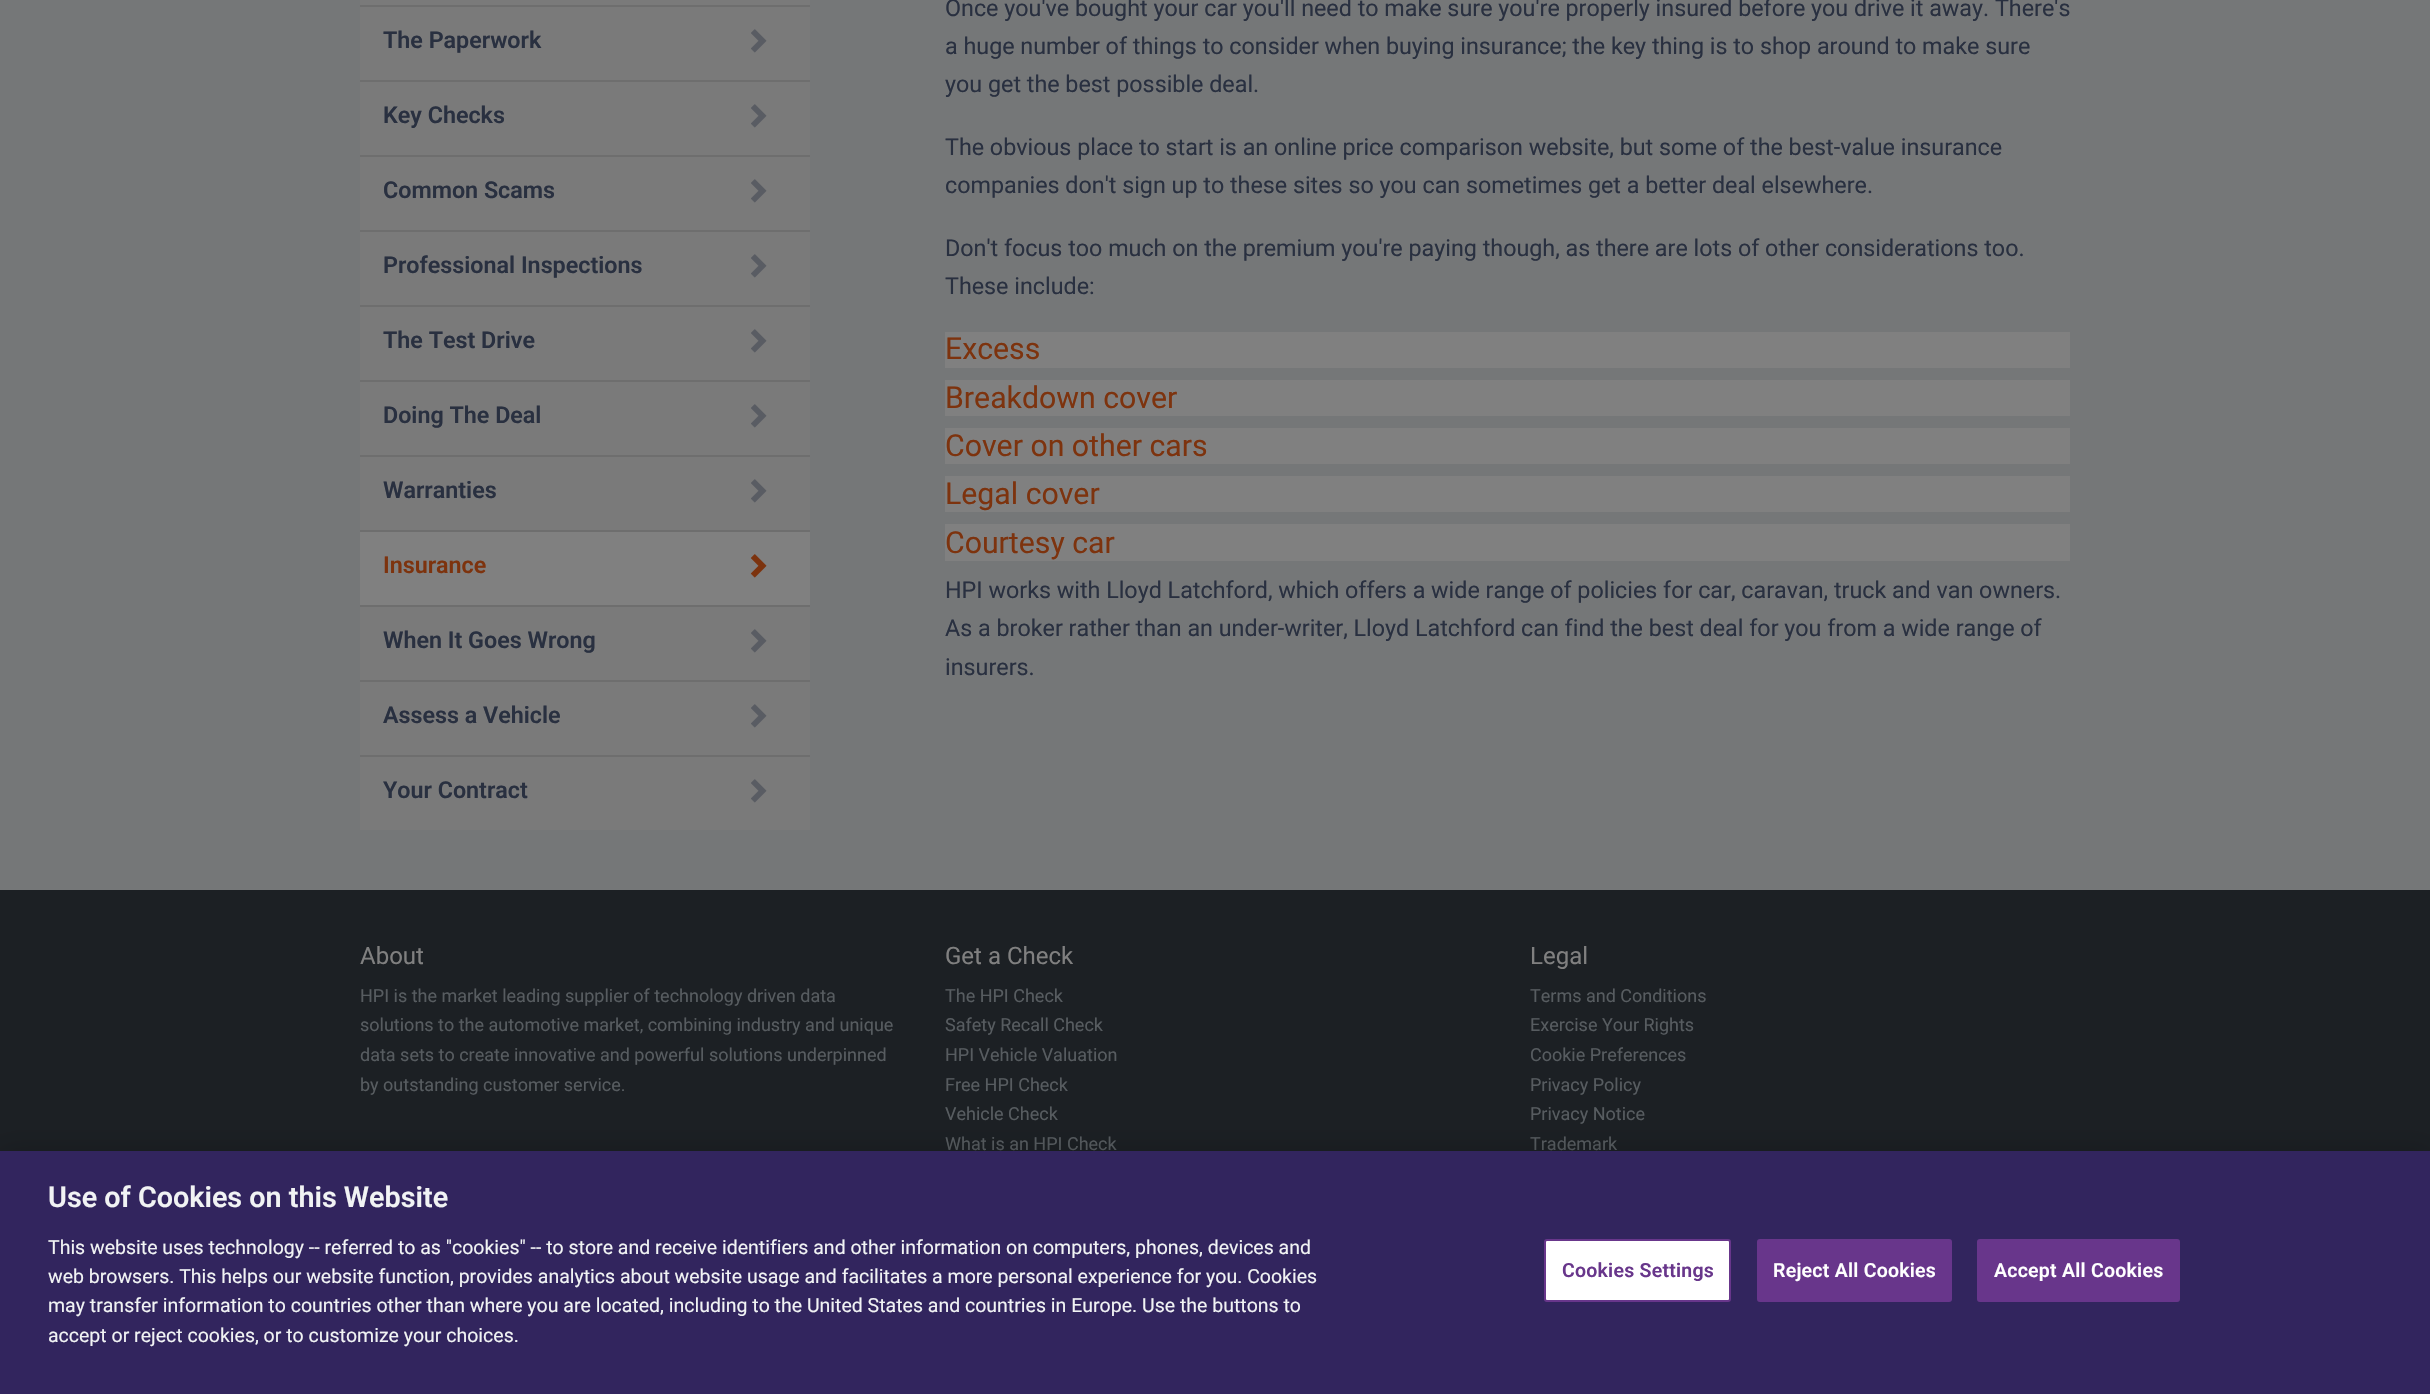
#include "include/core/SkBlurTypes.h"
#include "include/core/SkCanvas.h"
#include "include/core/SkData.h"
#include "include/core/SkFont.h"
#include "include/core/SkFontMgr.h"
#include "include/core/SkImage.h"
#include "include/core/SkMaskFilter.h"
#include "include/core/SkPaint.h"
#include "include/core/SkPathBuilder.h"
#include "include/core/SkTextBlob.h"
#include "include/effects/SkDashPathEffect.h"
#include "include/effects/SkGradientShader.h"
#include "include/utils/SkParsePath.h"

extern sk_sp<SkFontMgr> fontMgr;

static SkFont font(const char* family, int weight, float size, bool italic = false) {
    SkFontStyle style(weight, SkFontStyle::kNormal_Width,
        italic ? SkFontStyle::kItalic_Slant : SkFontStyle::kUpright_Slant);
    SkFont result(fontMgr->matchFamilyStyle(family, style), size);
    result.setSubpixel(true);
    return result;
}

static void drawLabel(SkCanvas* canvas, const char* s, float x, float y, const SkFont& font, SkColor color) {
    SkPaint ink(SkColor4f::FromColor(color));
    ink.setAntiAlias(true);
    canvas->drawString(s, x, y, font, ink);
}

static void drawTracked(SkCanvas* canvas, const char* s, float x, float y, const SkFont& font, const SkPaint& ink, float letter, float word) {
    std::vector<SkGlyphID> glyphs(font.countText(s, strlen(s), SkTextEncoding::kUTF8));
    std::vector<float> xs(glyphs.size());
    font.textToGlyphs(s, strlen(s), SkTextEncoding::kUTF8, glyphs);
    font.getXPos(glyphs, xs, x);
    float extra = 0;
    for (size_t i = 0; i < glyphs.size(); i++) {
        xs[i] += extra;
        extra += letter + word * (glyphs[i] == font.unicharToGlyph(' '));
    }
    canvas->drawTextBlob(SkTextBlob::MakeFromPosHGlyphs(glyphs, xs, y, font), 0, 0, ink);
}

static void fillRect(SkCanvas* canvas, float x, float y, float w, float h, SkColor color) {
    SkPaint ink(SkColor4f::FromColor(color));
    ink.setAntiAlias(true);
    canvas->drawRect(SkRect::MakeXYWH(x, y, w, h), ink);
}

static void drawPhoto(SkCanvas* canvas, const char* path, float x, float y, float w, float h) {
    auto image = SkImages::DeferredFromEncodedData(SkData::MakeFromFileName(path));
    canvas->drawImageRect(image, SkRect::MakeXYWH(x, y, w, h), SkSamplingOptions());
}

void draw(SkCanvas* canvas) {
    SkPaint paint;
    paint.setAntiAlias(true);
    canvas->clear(0xFF757778);
    fillRect(canvas, 360, 0, 450, 5, 0xFF7A7A7A);
    fillRect(canvas, 360, 7, 450, 73, 0xFF7A7A7A);
    fillRect(canvas, 360, 5, 450, 2, 0xFF6E6E6E);
    SkFont font1 = font("Roboto", 600, 23.3f);
    drawLabel(canvas, "The Paperwork", 383, 48, font1, 0xFF293040);
    drawPhoto(canvas, "assets/img1.png", 751, 29, 16, 24);
    fillRect(canvas, 360, 82, 450, 73, 0xFF7A7A7A);
    fillRect(canvas, 360, 80, 450, 2, 0xFF6E6E6E);
    drawLabel(canvas, "Key Checks", 383, 123, font1, 0xFF293040);
    drawPhoto(canvas, "assets/img1.png", 751, 104, 16, 24);
    fillRect(canvas, 360, 157, 450, 73, 0xFF7A7A7A);
    fillRect(canvas, 360, 155, 450, 2, 0xFF6E6E6E);
    drawLabel(canvas, "Common Scams", 383, 198, font1, 0xFF293040);
    drawPhoto(canvas, "assets/img1.png", 751, 179, 16, 24);
    fillRect(canvas, 360, 232, 450, 73, 0xFF7A7A7A);
    fillRect(canvas, 360, 230, 450, 2, 0xFF6E6E6E);
    drawLabel(canvas, "Professional Inspections", 383, 273, font1, 0xFF293040);
    drawPhoto(canvas, "assets/img1.png", 751, 254, 16, 24);
    fillRect(canvas, 360, 307, 450, 73, 0xFF7A7A7A);
    fillRect(canvas, 360, 305, 450, 2, 0xFF6E6E6E);
    drawLabel(canvas, "The Test Drive", 383, 348, font1, 0xFF293040);
    drawPhoto(canvas, "assets/img1.png", 751, 329, 16, 24);
    fillRect(canvas, 360, 382, 450, 73, 0xFF7A7A7A);
    fillRect(canvas, 360, 380, 450, 2, 0xFF6E6E6E);
    drawLabel(canvas, "Doing The Deal", 383, 423, font1, 0xFF293040);
    drawPhoto(canvas, "assets/img1.png", 751, 404, 16, 24);
    fillRect(canvas, 360, 457, 450, 73, 0xFF7A7A7A);
    fillRect(canvas, 360, 455, 450, 2, 0xFF6E6E6E);
    drawLabel(canvas, "Warranties", 383, 498, font1, 0xFF293040);
    drawPhoto(canvas, "assets/img1.png", 751, 479, 16, 24);
    fillRect(canvas, 360, 532, 450, 73, 0xFF808080);
    fillRect(canvas, 360, 530, 450, 2, 0xFF6E6E6E);
    drawLabel(canvas, "Insurance", 383, 573, font1, 0xFF7D330E);
    drawPhoto(canvas, "assets/img2.png", 750, 554, 17, 24);
    fillRect(canvas, 360, 607, 450, 73, 0xFF7A7A7A);
    fillRect(canvas, 360, 605, 450, 2, 0xFF6E6E6E);
    drawLabel(canvas, "When It Goes Wrong", 383, 648, font1, 0xFF293040);
    drawPhoto(canvas, "assets/img1.png", 751, 629, 16, 24);
    fillRect(canvas, 360, 682, 450, 73, 0xFF7A7A7A);
    fillRect(canvas, 360, 680, 450, 2, 0xFF6E6E6E);
    drawLabel(canvas, "Assess a Vehicle", 383, 723, font1, 0xFF293040);
    drawPhoto(canvas, "assets/img1.png", 751, 704, 16, 24);
    fillRect(canvas, 360, 757, 450, 73, 0xFF7A7A7A);
    fillRect(canvas, 360, 755, 450, 2, 0xFF6E6E6E);
    drawLabel(canvas, "Your Contract", 383, 798, font1, 0xFF293040);
    drawPhoto(canvas, "assets/img1.png", 751, 779, 16, 24);
    SkFont font2 = font("Roboto", 400, 23.3f);
    drawLabel(canvas, "Once you've bought your car you'll need to make sure you're properly insured before you drive it away. There's", 945, 16, font2, 0xFF293040);
    drawLabel(canvas, "a huge number of things to consider when buying insurance; the key thing is to shop around to make sure", 945, 54, font2, 0xFF293040);
    drawLabel(canvas, "you get the best possible deal.", 945, 92, font2, 0xFF293040);
    drawLabel(canvas, "The obvious place to start is an online price comparison website, but some of the best-value insurance", 945, 155, font2, 0xFF293040);
    drawLabel(canvas, "companies don't sign up to these sites so you can sometimes get a better deal elsewhere.", 945, 193, font2, 0xFF293040);
    drawLabel(canvas, "Don't focus too much on the premium you're paying though, as there are lots of other considerations too.", 945, 256, font2, 0xFF293040);
    drawLabel(canvas, "These include:", 945, 294, font2, 0xFF293040);
    fillRect(canvas, 945, 332, 1125, 36, 0xFF808080);
    SkFont font3 = font("Roboto", 400, 30.25f);
    drawLabel(canvas, "Excess", 945, 359, font3, 0xFF7D330E);
    fillRect(canvas, 945, 380, 1125, 36, 0xFF808080);
    drawLabel(canvas, "Breakdown cover", 945, 408, font3, 0xFF7D330E);
    fillRect(canvas, 945, 428, 1125, 36, 0xFF808080);
    drawLabel(canvas, "Cover on other cars", 945, 456, font3, 0xFF7D330E);
    fillRect(canvas, 945, 476, 1125, 36, 0xFF808080);
    drawLabel(canvas, "Legal cover", 945, 504, font3, 0xFF7D330E);
    fillRect(canvas, 945, 524, 1125, 37, 0xFF808080);
    drawLabel(canvas, "Courtesy car", 945, 553, font3, 0xFF7D330E);
    drawLabel(canvas, "HPI works with Lloyd Latchford, which offers a wide range of policies for car, caravan, truck and van owners.", 945, 598, font2, 0xFF293040);
    drawLabel(canvas, "As a broker rather than an under-writer, Lloyd Latchford can find the best deal for you from a wide range of", 945, 636, font2, 0xFF293040);
    drawLabel(canvas, "insurers.", 945, 675, font2, 0xFF293040);
    fillRect(canvas, 0, 890, 2430, 261, 0xFF1C2024);
    SkFont font4 = font("Roboto", 400, 24);
    drawLabel(canvas, "About", 360, 964, font4, 0xFF808080);
    SkFont font5 = font("Roboto", 400, 18);
    drawLabel(canvas, "HPI is the market leading supplier of technology driven data", 360, 1002, font5, 0xFF575C60);
    drawLabel(canvas, "solutions to the automotive market, combining industry and unique", 360, 1031, font5, 0xFF575C60);
    drawLabel(canvas, "data sets to create innovative and powerful solutions underpinned", 360, 1061, font5, 0xFF575C60);
    drawLabel(canvas, "by outstanding customer service.", 360, 1091, font5, 0xFF575C60);
    drawLabel(canvas, "Get a Check", 945, 964, font4, 0xFF808080);
    drawLabel(canvas, "The HPI Check", 945, 1002, font5, 0xFF575C60);
    drawLabel(canvas, "Safety Recall Check", 945, 1031, font5, 0xFF575C60);
    drawLabel(canvas, "HPI Vehicle Valuation", 945, 1061, font5, 0xFF575C60);
    drawLabel(canvas, "Free HPI Check", 945, 1091, font5, 0xFF575C60);
    drawLabel(canvas, "Vehicle Check", 945, 1120, font5, 0xFF575C60);
    drawLabel(canvas, "What is an HPI Check", 945, 1150, font5, 0xFF575C60);
    drawLabel(canvas, "Legal", 1530, 964, font4, 0xFF808080);
    drawLabel(canvas, "Terms and Conditions", 1530, 1002, font5, 0xFF575C60);
    drawLabel(canvas, "Exercise Your Rights", 1530, 1031, font5, 0xFF575C60);
    drawLabel(canvas, "Cookie Preferences", 1530, 1061, font5, 0xFF575C60);
    drawLabel(canvas, "Privacy Policy", 1530, 1091, font5, 0xFF575C60);
    drawLabel(canvas, "Privacy Notice", 1530, 1120, font5, 0xFF575C60);
    drawLabel(canvas, "Trademark", 1530, 1150, font5, 0xFF575C60);
    paint.setColor(0x33000000);
    paint.setMaskFilter(SkMaskFilter::MakeBlur(kNormal_SkBlurStyle, 13.5f));
    canvas->drawRect(SkRect::MakeXYWH(0, 1151, 2430, 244), paint);
    paint.setMaskFilter(nullptr);
    fillRect(canvas, 0, 1151, 2430, 243, 0xFF32255E);
    SkFont font6 = font("Roboto", 600, 28.75f);
    drawLabel(canvas, "Use of Cookies on this Website", 48, 1207, font6, 0xFFF1F3F4);
    SkFont font7 = font("Roboto", 400, 19.5f);
    drawLabel(canvas, "This website uses technology -- referred to as \"cookies\" -- to store and receive identifiers and other information on computers, phones, devices and", 48, 1254, font7, 0xFFF1F3F4);
    drawLabel(canvas, "web browsers. This helps our website function, provides analytics about website usage and facilitates a more personal experience for you. Cookies", 48, 1283, font7, 0xFFF1F3F4);
    drawLabel(canvas, "may transfer information to countries other than where you are located, including to the United States and countries in Europe. Use the buttons to", 48, 1312, font7, 0xFFF1F3F4);
    drawLabel(canvas, "accept or reject cookies, or to customize your choices.", 48, 1342, font7, 0xFFF1F3F4);
    paint.setColor(0xFFFFFFFF);
    canvas->drawRoundRect(SkRect::MakeXYWH(1545, 1240, 185, 61), 2, 2, paint);
    paint.setStroke(true);
    paint.setStrokeWidth(2);
    paint.setColor(0xFF68368B);
    canvas->drawRoundRect(SkRect::MakeXYWH(1545, 1240, 185, 61), 2, 2, paint);
    SkFont font8 = font("Roboto", 600, 19.5f);
    paint.setStroke(false);
    drawTracked(canvas, "Cookies Settings", 1562, 1277, font8, paint, 0.25f, 0);
    canvas->drawRoundRect(SkRect::MakeXYWH(1758, 1240, 193, 61), 2, 2, paint);
    paint.setStroke(true);
    canvas->drawRoundRect(SkRect::MakeXYWH(1758, 1240, 193, 61), 2, 2, paint);
    paint.setStroke(false);
    paint.setColor(0xFFFFFFFF);
    drawTracked(canvas, "Reject All Cookies", 1773, 1277, font8, paint, 0.25f, 0);
    paint.setColor(0xFF68368B);
    canvas->drawRoundRect(SkRect::MakeXYWH(1978, 1240, 201, 61), 2, 2, paint);
    paint.setStroke(true);
    canvas->drawRoundRect(SkRect::MakeXYWH(1978, 1240, 201, 61), 2, 2, paint);
    paint.setStroke(false);
    paint.setColor(0xFFFFFFFF);
    drawTracked(canvas, "Accept All Cookies", 1994, 1277, font8, paint, 0.25f, 0);
}
